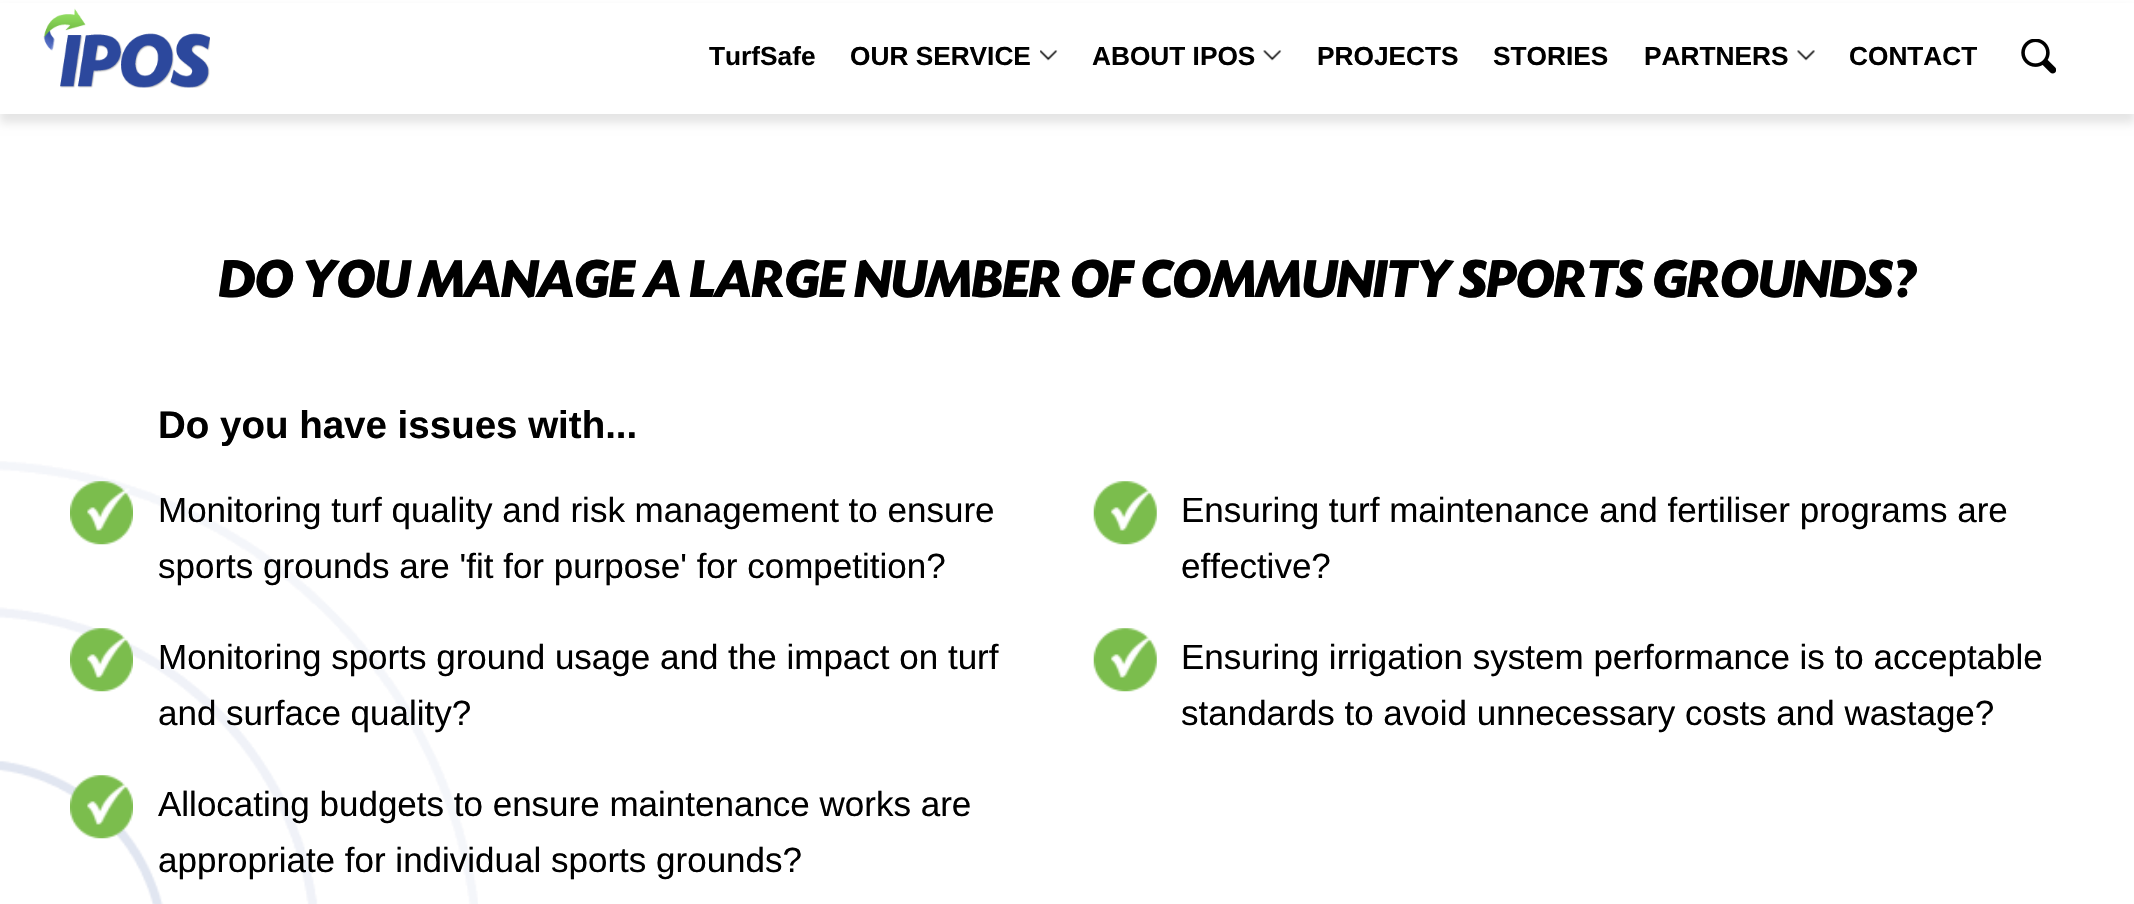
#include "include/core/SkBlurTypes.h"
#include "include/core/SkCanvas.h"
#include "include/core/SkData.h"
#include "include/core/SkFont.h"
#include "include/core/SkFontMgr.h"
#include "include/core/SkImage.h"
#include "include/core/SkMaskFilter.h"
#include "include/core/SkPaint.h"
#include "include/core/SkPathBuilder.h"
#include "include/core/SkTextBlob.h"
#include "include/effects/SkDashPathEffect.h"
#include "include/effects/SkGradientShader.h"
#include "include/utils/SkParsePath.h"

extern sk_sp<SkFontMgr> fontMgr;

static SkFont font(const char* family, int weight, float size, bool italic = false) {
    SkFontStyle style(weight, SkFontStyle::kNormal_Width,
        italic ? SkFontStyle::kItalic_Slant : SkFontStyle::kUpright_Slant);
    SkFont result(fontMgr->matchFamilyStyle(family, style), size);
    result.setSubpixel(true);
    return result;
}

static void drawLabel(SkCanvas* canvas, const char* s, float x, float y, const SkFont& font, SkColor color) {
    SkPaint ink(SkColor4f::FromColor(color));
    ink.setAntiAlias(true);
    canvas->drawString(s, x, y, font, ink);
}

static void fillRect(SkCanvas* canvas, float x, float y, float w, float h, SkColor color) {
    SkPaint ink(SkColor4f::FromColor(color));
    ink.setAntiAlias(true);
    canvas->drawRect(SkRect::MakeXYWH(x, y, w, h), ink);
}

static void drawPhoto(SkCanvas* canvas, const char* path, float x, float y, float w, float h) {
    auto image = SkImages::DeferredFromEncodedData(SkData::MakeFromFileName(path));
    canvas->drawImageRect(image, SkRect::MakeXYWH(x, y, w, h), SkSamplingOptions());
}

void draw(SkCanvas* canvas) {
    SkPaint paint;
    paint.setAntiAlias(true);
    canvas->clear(0xFFFFFFFF);
    paint.setColor(0x1A000000);
    paint.setMaskFilter(SkMaskFilter::MakeBlur(kNormal_SkBlurStyle, 4.5f));
    canvas->drawRect(SkRect::MakeXYWH(0, 9, 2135, 114), paint);
    paint.setMaskFilter(nullptr);
    fillRect(canvas, 0, 3, 2134, 111, 0xFFFFFFFF);
    drawPhoto(canvas, "assets/img1.png", 43, 8, 167, 80);
    SkFont font1 = font("Liberation Sans", 700, 26.25f);
    drawLabel(canvas, "TurfSafe", 709, 65, font1, 0xFF000000);
    drawLabel(canvas, "OUR SERVICE", 850, 65, font1, 0xFF000000);
    drawPhoto(canvas, "assets/img2.png", 1040, 50, 18, 11);
    drawLabel(canvas, "ABOUT IPOS", 1092, 65, font1, 0xFF000000);
    drawPhoto(canvas, "assets/img3.png", 1263, 50, 19, 11);
    drawLabel(canvas, "PROJECTS", 1317, 65, font1, 0xFF000000);
    drawLabel(canvas, "STORIES", 1493, 65, font1, 0xFF000000);
    drawLabel(canvas, "PARTNERS", 1644, 65, font1, 0xFF000000);
    drawPhoto(canvas, "assets/img4.png", 1797, 50, 18, 11);
    drawLabel(canvas, "CONTACT", 1849, 65, font1, 0xFF000000);
    drawPhoto(canvas, "assets/img5.png", 2021, 39, 35, 35);
    drawPhoto(canvas, "assets/img6.png", 0, 461, 478, 443);
    SkFont font2 = font("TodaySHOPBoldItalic", 700, 56);
    drawLabel(canvas, "DO YOU MANAGE A LARGE NUMBER OF COMMUNITY SPORTS GROUNDS?", 219, 297, font2, 0xFF000000);
    SkFont font3 = font("Liberation Sans", 700, 38.5f);
    drawLabel(canvas, "Do you have issues with...", 158, 438, font3, 0xFF000000);
    drawPhoto(canvas, "assets/img7.png", 70, 481, 63, 64);
    SkFont font4 = font("Liberation Sans", 400, 35);
    drawLabel(canvas, "Monitoring turf quality and risk management to ensure", 158, 522, font4, 0xFF000000);
    drawLabel(canvas, "sports grounds are 'fit for purpose' for competition?", 158, 578, font4, 0xFF000000);
    drawPhoto(canvas, "assets/img8.png", 70, 628, 63, 64);
    drawLabel(canvas, "Monitoring sports ground usage and the impact on turf", 158, 669, font4, 0xFF000000);
    drawLabel(canvas, "and surface quality?", 158, 725, font4, 0xFF000000);
    drawPhoto(canvas, "assets/img9.png", 70, 775, 63, 64);
    drawLabel(canvas, "Allocating budgets to ensure maintenance works are", 158, 816, font4, 0xFF000000);
    drawLabel(canvas, "appropriate for individual sports grounds?", 158, 872, font4, 0xFF000000);
    drawPhoto(canvas, "assets/img10.png", 1093, 481, 64, 64);
    drawLabel(canvas, "Ensuring turf maintenance and fertiliser programs are", 1181, 522, font4, 0xFF000000);
    drawLabel(canvas, "effective?", 1181, 578, font4, 0xFF000000);
    drawPhoto(canvas, "assets/img10.png", 1093, 628, 64, 64);
    drawLabel(canvas, "Ensuring irrigation system performance is to acceptable", 1181, 669, font4, 0xFF000000);
    drawLabel(canvas, "standards to avoid unnecessary costs and wastage?", 1181, 725, font4, 0xFF000000);
}
